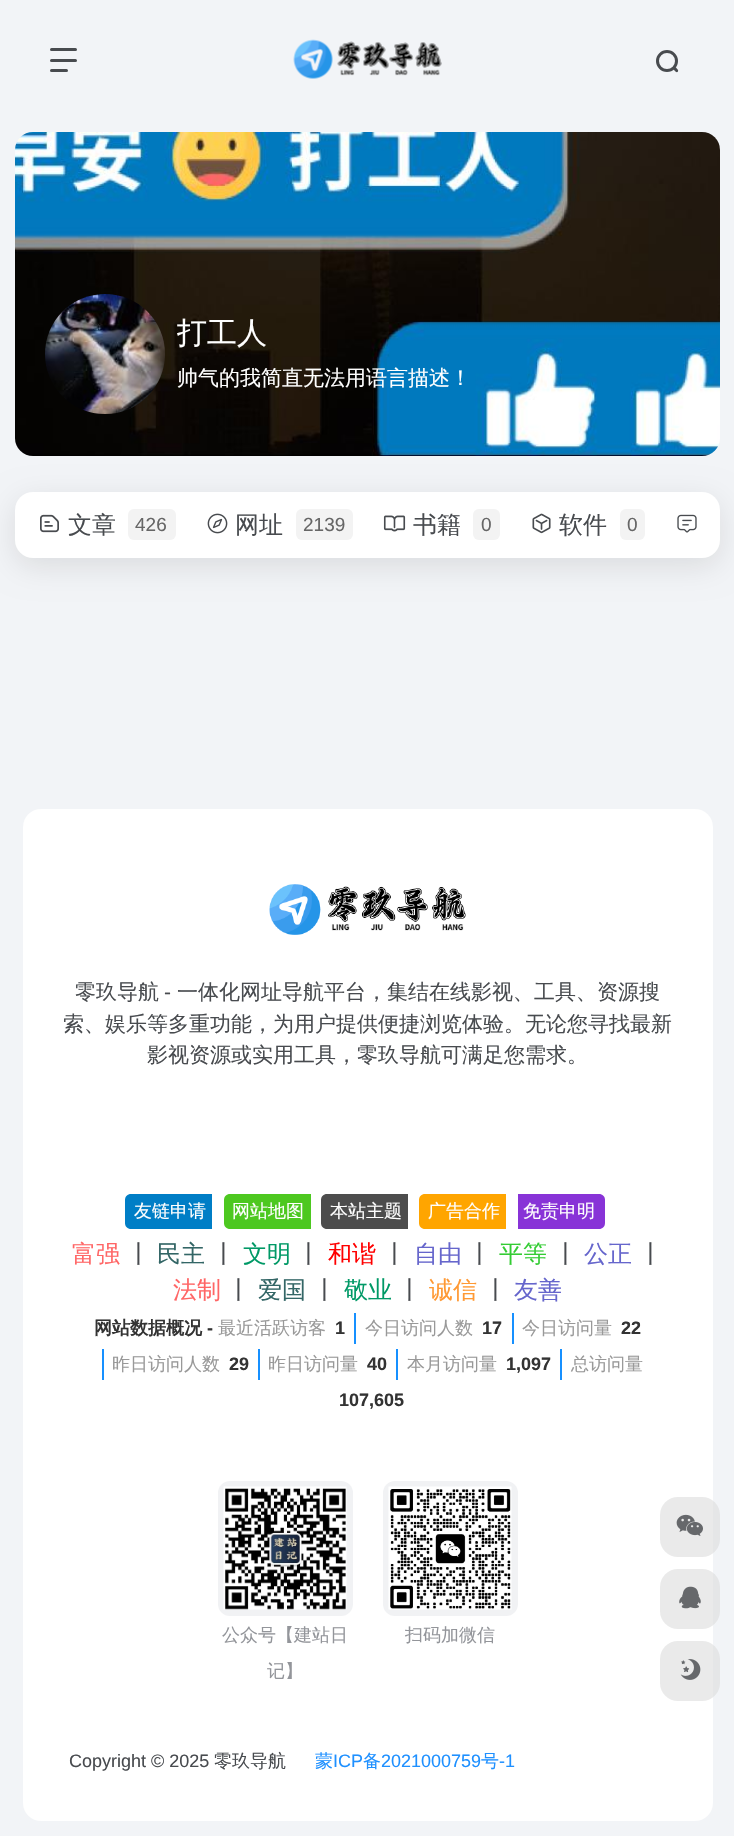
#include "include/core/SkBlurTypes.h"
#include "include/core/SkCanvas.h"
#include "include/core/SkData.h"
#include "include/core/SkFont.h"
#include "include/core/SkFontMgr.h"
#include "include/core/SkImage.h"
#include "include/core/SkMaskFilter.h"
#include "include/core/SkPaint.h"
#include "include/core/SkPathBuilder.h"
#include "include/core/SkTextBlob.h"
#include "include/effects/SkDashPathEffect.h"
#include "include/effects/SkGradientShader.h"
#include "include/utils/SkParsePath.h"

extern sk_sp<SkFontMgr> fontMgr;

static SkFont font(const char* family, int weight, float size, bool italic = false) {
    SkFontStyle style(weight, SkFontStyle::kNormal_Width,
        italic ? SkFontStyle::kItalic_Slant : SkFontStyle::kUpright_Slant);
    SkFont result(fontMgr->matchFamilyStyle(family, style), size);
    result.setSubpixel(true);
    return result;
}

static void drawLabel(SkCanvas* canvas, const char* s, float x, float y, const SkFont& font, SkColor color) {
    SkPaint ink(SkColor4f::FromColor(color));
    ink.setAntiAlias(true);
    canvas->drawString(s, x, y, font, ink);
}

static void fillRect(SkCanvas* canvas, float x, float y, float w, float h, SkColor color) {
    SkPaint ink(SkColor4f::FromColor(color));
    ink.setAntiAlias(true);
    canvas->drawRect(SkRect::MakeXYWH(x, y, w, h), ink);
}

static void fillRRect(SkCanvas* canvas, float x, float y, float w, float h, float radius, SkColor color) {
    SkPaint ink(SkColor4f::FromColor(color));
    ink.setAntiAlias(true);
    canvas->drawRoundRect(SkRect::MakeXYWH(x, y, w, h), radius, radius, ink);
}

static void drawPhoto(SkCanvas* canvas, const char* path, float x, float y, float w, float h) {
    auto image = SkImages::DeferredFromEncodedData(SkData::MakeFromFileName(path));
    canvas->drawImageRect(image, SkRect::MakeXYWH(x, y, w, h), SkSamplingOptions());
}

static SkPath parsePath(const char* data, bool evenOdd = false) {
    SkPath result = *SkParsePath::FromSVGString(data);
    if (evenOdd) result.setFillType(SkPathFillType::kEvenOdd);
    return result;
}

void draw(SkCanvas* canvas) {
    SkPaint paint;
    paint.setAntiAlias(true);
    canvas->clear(0xFFF2F4F7);
    fillRRect(canvas, 50, 48, 27, 3, 1.5f, 0xFF484B4F);
    fillRRect(canvas, 50, 59, 27, 3, 1.5f, 0xFF484B4F);
    fillRRect(canvas, 50, 69, 18, 3, 1.5f, 0xFF484B4F);
    drawPhoto(canvas, "assets/img1.png", 293, 39, 149, 40);
    paint.setStroke(true);
    paint.setStrokeWidth(3);
    paint.setColor(0xFF484B4F);
    canvas->drawCircle(667, 61, 9.5f, paint);
    paint.setStroke(false);
    canvas->drawPath(parsePath("M676 67.5L678 70C678.5 71.5 677.5 72.5 676 72L673.5 69.5C672.5 68 674.5 66.5 676 67.5Z"), paint);
    drawPhoto(canvas, "assets/img2.png", 15, 132, 705, 324);
    drawPhoto(canvas, "assets/img3.png", 45, 294, 120, 120);
    SkFont font1 = font("WenQuanYi Zen Hei", 500, 30);
    drawLabel(canvas, "打工人", 177, 343, font1, 0xFFFFFFFF);
    SkFont font2 = font("WenQuanYi Zen Hei", 500, 21);
    drawLabel(canvas, "帅气的我简直无法用语言描述！", 177, 385, font2, 0xFFFFFFFF);
    paint.setColor(0x1A000000);
    paint.setMaskFilter(SkMaskFilter::MakeBlur(kNormal_SkBlurStyle, 15));
    canvas->drawRoundRect(SkRect::MakeXYWH(15, 500, 705, 66), 18, 18, paint);
    paint.setMaskFilter(nullptr);
    fillRRect(canvas, 15, 492, 705, 66, 18, 0xFFFFFFFF);
    drawPhoto(canvas, "assets/img4.png", 40, 514, 19, 19);
    SkFont font3 = font("WenQuanYi Zen Hei", 500, 24);
    drawLabel(canvas, "文章", 68, 533, font3, 0xFF484B4F);
    fillRRect(canvas, 128, 509, 48, 31, 6, 0xFFF3F3F3);
    SkFont font4 = font("Liberation Sans", 400, 19);
    drawLabel(canvas, "426", 135, 531, font4, 0xFF666666);
    drawPhoto(canvas, "assets/img5.png", 207, 513, 21, 21);
    drawLabel(canvas, "网址", 235, 533, font3, 0xFF484B4F);
    fillRRect(canvas, 296, 509, 57, 31, 6, 0xFFF3F3F3);
    drawLabel(canvas, "2139", 303, 531, font4, 0xFF666666);
    drawPhoto(canvas, "assets/img6.png", 383, 515, 23, 17);
    drawLabel(canvas, "书籍", 413, 533, font3, 0xFF484B4F);
    fillRRect(canvas, 473, 509, 27, 31, 6, 0xFFF3F3F3);
    drawLabel(canvas, "0", 481, 531, font4, 0xFF666666);
    drawPhoto(canvas, "assets/img7.png", 532, 513, 19, 21);
    drawLabel(canvas, "软件", 559, 533, font3, 0xFF484B4F);
    fillRRect(canvas, 620, 509, 25, 31, 6, 0xFFF3F3F3);
    drawLabel(canvas, "0", 627, 531, font4, 0xFF666666);
    drawPhoto(canvas, "assets/img8.png", 677, 514, 20, 19);
    fillRRect(canvas, 23, 809, 690, 1012, 18, 0xFFFFFFFF);
    drawPhoto(canvas, "assets/img9.png", 269, 884, 197, 51);
    drawLabel(canvas, "零玖导航", 75, 999, font2, 0xFF484B4F);
    SkFont font5 = font("Liberation Sans", 400, 21);
    drawLabel(canvas, "-", 164, 999, font5, 0xFF484B4F);
    drawLabel(canvas, "一体化网址导航平台，集结在线影视、工具、资源搜", 177, 999, font2, 0xFF484B4F);
    drawLabel(canvas, "索、娱乐等多重功能，为用户提供便捷浏览体验。无论您寻找最新", 63, 1031, font2, 0xFF484B4F);
    drawLabel(canvas, "影视资源或实用工具，零玖导航可满足您需求。", 147, 1062, font2, 0xFF484B4F);
    paint.setColor(0xFF007EC6);
    canvas->drawPath(parsePath("M131 1194H212V1229H131C127.5 1229 125 1226.5 125 1223V1200C125 1196.5 127.5 1194 131 1194Z"), paint);
    SkFont font6 = font("WenQuanYi Zen Hei", 500, 18);
    drawLabel(canvas, "友链申请", 134, 1217, font6, 0xFFFFFFFF);
    paint.setColor(0xFF4DC820);
    canvas->drawPath(parsePath("M230 1194H311V1229H230C226.5 1229 224 1226.5 224 1223V1200C224 1196.5 226.5 1194 230 1194Z"), paint);
    drawLabel(canvas, "网站地图", 232, 1217, font6, 0xFFFFFFFF);
    paint.setColor(0xFF4D4D4D);
    canvas->drawPath(parsePath("M327 1194H408V1229H327C323.5 1229 321 1226.5 321 1223V1200C321 1196.5 323.5 1194 327 1194Z"), paint);
    drawLabel(canvas, "本站主题", 330, 1217, font6, 0xFFFFFFFF);
    paint.setColor(0xFFFFA500);
    canvas->drawPath(parsePath("M425 1194H506V1229H425C421.5 1229 419 1226.5 419 1223V1200C419 1196.5 421.5 1194 425 1194Z"), paint);
    drawLabel(canvas, "广告合作", 428, 1217, font6, 0xFFFFFFFF);
    paint.setColor(0xFF8833D7);
    canvas->drawPath(parsePath("M518 1194H599C602.5 1194 605 1196.5 605 1200V1223C605 1226.5 602.5 1229 599 1229H518Z"), paint);
    drawLabel(canvas, "免责申明", 523, 1217, font6, 0xFFFFFFFF);
    drawLabel(canvas, "富强", 72, 1262, font3, 0xFFFF6666);
    drawLabel(canvas, "丨", 127, 1262, font3, 0xFF484B4F);
    drawLabel(canvas, "民主", 157, 1262, font3, 0xFF336666);
    drawLabel(canvas, "丨", 212, 1262, font3, 0xFF484B4F);
    drawLabel(canvas, "文明", 243, 1262, font3, 0xFF009966);
    drawLabel(canvas, "丨", 297, 1262, font3, 0xFF484B4F);
    drawLabel(canvas, "和谐", 328, 1262, font3, 0xFFFF0000);
    drawLabel(canvas, "丨", 383, 1262, font3, 0xFF484B4F);
    drawLabel(canvas, "自由", 414, 1262, font3, 0xFF6666CC);
    drawLabel(canvas, "丨", 468, 1262, font3, 0xFF484B4F);
    drawLabel(canvas, "平等", 499, 1262, font3, 0xFF33CC33);
    drawLabel(canvas, "丨", 554, 1262, font3, 0xFF484B4F);
    drawLabel(canvas, "公正", 584, 1262, font3, 0xFF6666CC);
    drawLabel(canvas, "丨", 639, 1262, font3, 0xFF484B4F);
    drawLabel(canvas, "法制", 173, 1298, font3, 0xFFFF6666);
    drawLabel(canvas, "丨", 227, 1298, font3, 0xFF484B4F);
    drawLabel(canvas, "爱国", 258, 1298, font3, 0xFF336666);
    drawLabel(canvas, "丨", 313, 1298, font3, 0xFF484B4F);
    drawLabel(canvas, "敬业", 344, 1298, font3, 0xFF009966);
    drawLabel(canvas, "丨", 398, 1298, font3, 0xFF484B4F);
    drawLabel(canvas, "诚信", 429, 1298, font3, 0xFFFF9933);
    drawLabel(canvas, "丨", 484, 1298, font3, 0xFF484B4F);
    drawLabel(canvas, "友善", 514, 1298, font3, 0xFF6666CC);
    SkFont font7 = font("WenQuanYi Zen Hei", 700, 18);
    drawLabel(canvas, "网站数据概况", 94, 1334, font7, 0xFF333333);
    SkFont font8 = font("Liberation Sans", 700, 18);
    drawLabel(canvas, "-", 207, 1334, font8, 0xFF333333);
    drawLabel(canvas, "最近活跃访客", 218, 1334, font6, 0xFF999999);
    drawLabel(canvas, "1", 335, 1334, font8, 0xFF333333);
    fillRect(canvas, 354, 1313, 2, 31, 0xFF1690FF);
    drawLabel(canvas, "今日访问人数", 365, 1334, font6, 0xFF999999);
    drawLabel(canvas, "17", 482, 1334, font8, 0xFF333333);
    fillRect(canvas, 512, 1313, 2, 31, 0xFF1690FF);
    drawLabel(canvas, "今日访问量", 522, 1334, font6, 0xFF999999);
    drawLabel(canvas, "22", 621, 1334, font8, 0xFF333333);
    fillRect(canvas, 102, 1349, 2, 31, 0xFF1690FF);
    drawLabel(canvas, "昨日访问人数", 112, 1370, font6, 0xFF999999);
    drawLabel(canvas, "29", 229, 1370, font8, 0xFF333333);
    fillRect(canvas, 258, 1349, 2, 31, 0xFF1690FF);
    drawLabel(canvas, "昨日访问量", 268, 1370, font6, 0xFF999999);
    drawLabel(canvas, "40", 367, 1370, font8, 0xFF333333);
    fillRect(canvas, 560, 1349, 2, 31, 0xFF1690FF);
    drawLabel(canvas, "总访问量", 571, 1370, font6, 0xFF999999);
    drawLabel(canvas, "107,605", 339, 1406, font8, 0xFF333333);
    fillRect(canvas, 396, 1349, 2, 31, 0xFF1690FF);
    drawLabel(canvas, "本月访问量", 407, 1370, font6, 0xFF999999);
    drawLabel(canvas, "1,097", 506, 1370, font8, 0xFF333333);
    fillRRect(canvas, 218, 1481, 135, 135, 12, 0xFFF1F2F4);
    drawPhoto(canvas, "assets/img10.png", 223, 1486, 124, 124);
    drawLabel(canvas, "公众号【建站日", 222, 1641, font6, 0xFF93959A);
    drawLabel(canvas, "记】", 267, 1677, font6, 0xFF93959A);
    fillRRect(canvas, 383, 1481, 135, 135, 12, 0xFFF1F2F4);
    drawPhoto(canvas, "assets/img11.png", 388, 1486, 124, 124);
    drawLabel(canvas, "扫码加微信", 405, 1641, font6, 0xFF93959A);
    SkFont font9 = font("Liberation Sans", 400, 18);
    drawLabel(canvas, "Copyright © 2025", 69, 1767, font9, 0xFF484B4F);
    drawLabel(canvas, "零玖导航", 214, 1767, font6, 0xFF484B4F);
    drawLabel(canvas, "蒙", 315, 1767, font6, 0xFF1E90FF);
    drawLabel(canvas, "ICP", 333, 1767, font9, 0xFF1E90FF);
    drawLabel(canvas, "备", 363, 1767, font6, 0xFF1E90FF);
    drawLabel(canvas, "2021000759", 381, 1767, font9, 0xFF1E90FF);
    drawLabel(canvas, "号", 481, 1767, font6, 0xFF1E90FF);
    drawLabel(canvas, "-1", 499, 1767, font9, 0xFF1E90FF);
    fillRRect(canvas, 660, 1497, 60, 60, 18, 0x99DCDCDC);
    drawPhoto(canvas, "assets/img12.png", 676, 1514, 27, 22);
    fillRRect(canvas, 660, 1569, 60, 60, 18, 0x99DCDCDC);
    drawPhoto(canvas, "assets/img13.png", 679, 1586, 22, 23);
    fillRRect(canvas, 660, 1641, 60, 60, 18, 0x99DCDCDC);
    drawPhoto(canvas, "assets/img14.png", 680, 1659, 21, 21);
}
